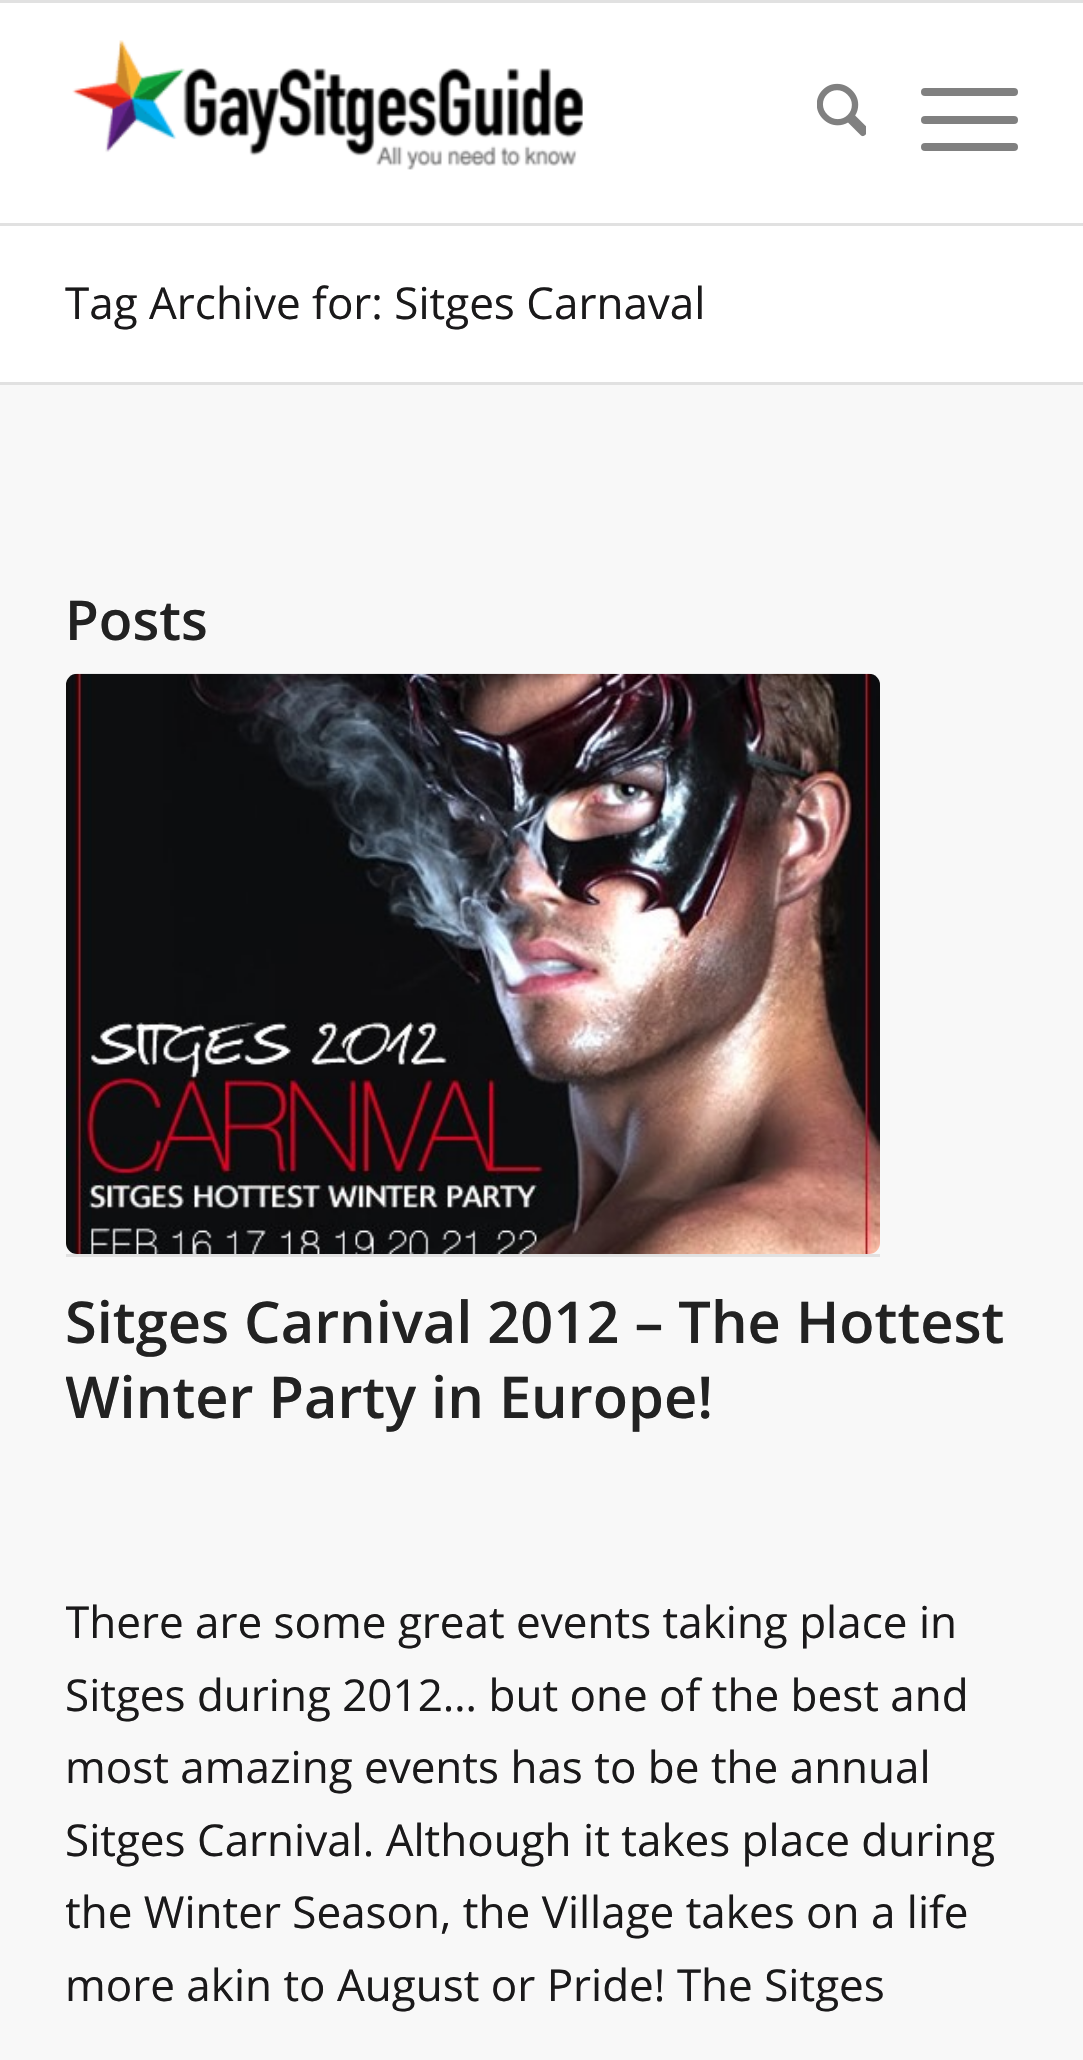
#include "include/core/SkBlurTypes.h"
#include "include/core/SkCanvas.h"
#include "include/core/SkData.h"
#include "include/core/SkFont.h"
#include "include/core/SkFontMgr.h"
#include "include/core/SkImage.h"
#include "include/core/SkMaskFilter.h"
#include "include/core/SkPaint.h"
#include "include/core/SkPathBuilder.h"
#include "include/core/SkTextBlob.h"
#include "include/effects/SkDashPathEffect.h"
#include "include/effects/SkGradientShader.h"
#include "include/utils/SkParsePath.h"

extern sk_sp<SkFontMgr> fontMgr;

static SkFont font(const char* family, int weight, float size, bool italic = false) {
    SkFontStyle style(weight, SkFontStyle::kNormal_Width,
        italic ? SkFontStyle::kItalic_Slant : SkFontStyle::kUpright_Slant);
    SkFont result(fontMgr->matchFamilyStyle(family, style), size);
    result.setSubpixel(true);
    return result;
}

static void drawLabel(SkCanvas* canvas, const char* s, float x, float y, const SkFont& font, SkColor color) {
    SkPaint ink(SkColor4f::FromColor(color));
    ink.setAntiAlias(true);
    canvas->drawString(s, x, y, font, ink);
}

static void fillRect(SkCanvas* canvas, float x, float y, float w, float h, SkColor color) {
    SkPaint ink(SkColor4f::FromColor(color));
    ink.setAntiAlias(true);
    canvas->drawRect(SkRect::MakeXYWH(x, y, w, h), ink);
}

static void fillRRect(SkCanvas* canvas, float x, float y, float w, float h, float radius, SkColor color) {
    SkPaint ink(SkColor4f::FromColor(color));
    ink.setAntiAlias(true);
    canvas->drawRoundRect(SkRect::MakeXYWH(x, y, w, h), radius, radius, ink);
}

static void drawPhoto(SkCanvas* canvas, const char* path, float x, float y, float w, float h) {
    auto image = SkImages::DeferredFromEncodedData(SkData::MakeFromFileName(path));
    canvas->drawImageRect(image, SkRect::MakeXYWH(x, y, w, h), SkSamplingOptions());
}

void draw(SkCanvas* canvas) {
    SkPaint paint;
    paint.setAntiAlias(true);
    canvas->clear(0xFFFFFFFF);
    fillRect(canvas, 0, 0, 1083, 3, 0xFFE1E1E1);
    fillRect(canvas, 0, 223, 1083, 3, 0xFFE1E1E1);
    drawPhoto(canvas, "assets/img1.png", 72, 40, 511, 130);
    drawPhoto(canvas, "assets/img2.png", 817, 83, 49, 54);
    fillRRect(canvas, 921, 116, 97, 8, 4, 0xFF808080);
    fillRRect(canvas, 921, 88, 97, 8, 4, 0xFF808080);
    fillRRect(canvas, 921, 143, 97, 8, 4, 0xFF808080);
    SkFont font1 = font("Open Sans", 400, 44);
    drawLabel(canvas, "Tag Archive for: Sitges Carnaval", 65, 319, font1, 0xFF1A191A);
    fillRect(canvas, 0, 385, 1083, 1675, 0xFFF8F8F8);
    fillRect(canvas, 0, 382, 1083, 3, 0xFFE1E1E1);
    SkFont font2 = font("Open Sans", 600, 55);
    drawLabel(canvas, "Posts", 65, 640, font2, 0xFF222222);
    fillRect(canvas, 66, 1254, 814, 3, 0xFFE1E1E1);
    drawPhoto(canvas, "assets/img3.png", 66, 673, 814, 581);
    SkFont font3 = font("Open Sans", 600, 57.75f);
    drawLabel(canvas, "Sitges Carnival 2012 – The Hottest", 65, 1343, font3, 0xFF222222);
    canvas->save();
    canvas->clipRect(SkRect::MakeXYWH(66, 1284, 952, 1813));
    drawLabel(canvas, "Winter Party in Europe!", 65, 1418, font3, 0xFF222222);
    drawLabel(canvas, "There are some great events taking place in", 65, 1638, font1, 0xFF1A191A);
    canvas->restore();
    drawLabel(canvas, "Sitges during 2012… but one of the best and", 65, 1711, font1, 0xFF1A191A);
    drawLabel(canvas, "most amazing events has to be the annual", 65, 1783, font1, 0xFF1A191A);
    drawLabel(canvas, "Sitges Carnival. Although it takes place during", 65, 1856, font1, 0xFF1A191A);
    canvas->save();
    canvas->clipRect(SkRect::MakeXYWH(66, 1284, 952, 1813));
    drawLabel(canvas, "the Winter Season, the Village takes on a life", 65, 1928, font1, 0xFF1A191A);
    canvas->restore();
    drawLabel(canvas, "more akin to August or Pride! The Sitges", 65, 2001, font1, 0xFF1A191A);
}
